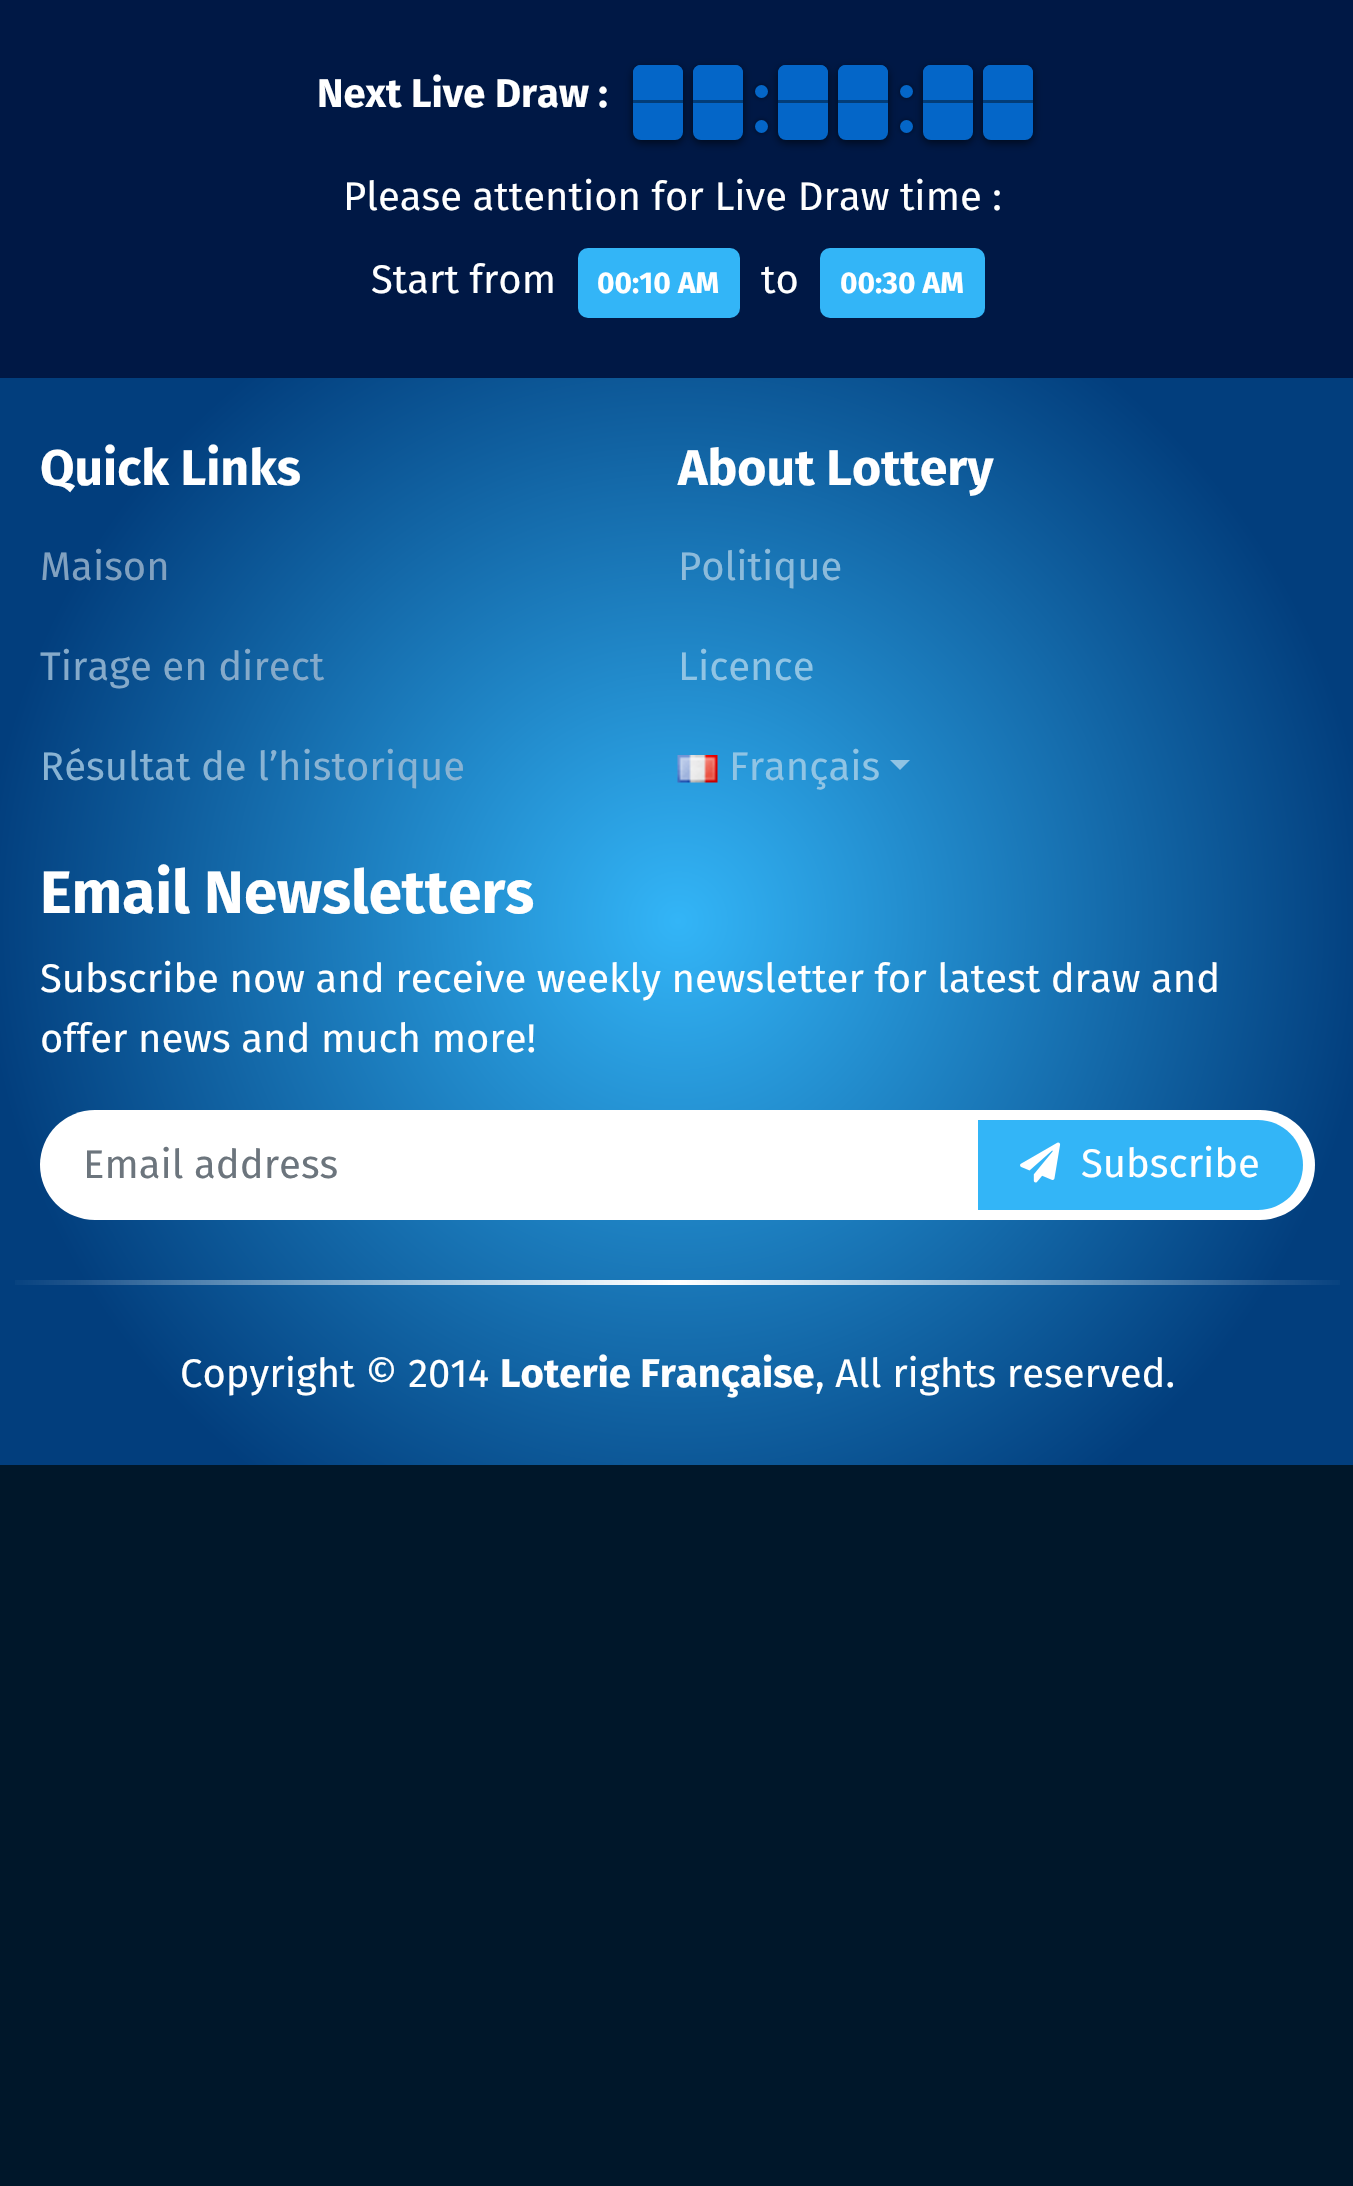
#include "include/core/SkBlurTypes.h"
#include "include/core/SkCanvas.h"
#include "include/core/SkData.h"
#include "include/core/SkFont.h"
#include "include/core/SkFontMgr.h"
#include "include/core/SkImage.h"
#include "include/core/SkMaskFilter.h"
#include "include/core/SkPaint.h"
#include "include/core/SkPathBuilder.h"
#include "include/core/SkTextBlob.h"
#include "include/effects/SkDashPathEffect.h"
#include "include/effects/SkGradientShader.h"
#include "include/utils/SkParsePath.h"

extern sk_sp<SkFontMgr> fontMgr;

static SkFont font(const char* family, int weight, float size, bool italic = false) {
    SkFontStyle style(weight, SkFontStyle::kNormal_Width,
        italic ? SkFontStyle::kItalic_Slant : SkFontStyle::kUpright_Slant);
    SkFont result(fontMgr->matchFamilyStyle(family, style), size);
    result.setSubpixel(true);
    return result;
}

static void drawLabel(SkCanvas* canvas, const char* s, float x, float y, const SkFont& font, SkColor color) {
    SkPaint ink(SkColor4f::FromColor(color));
    ink.setAntiAlias(true);
    canvas->drawString(s, x, y, font, ink);
}

static void fillRect(SkCanvas* canvas, float x, float y, float w, float h, SkColor color) {
    SkPaint ink(SkColor4f::FromColor(color));
    ink.setAntiAlias(true);
    canvas->drawRect(SkRect::MakeXYWH(x, y, w, h), ink);
}

static void fillRRect(SkCanvas* canvas, float x, float y, float w, float h, float radius, SkColor color) {
    SkPaint ink(SkColor4f::FromColor(color));
    ink.setAntiAlias(true);
    canvas->drawRoundRect(SkRect::MakeXYWH(x, y, w, h), radius, radius, ink);
}

static void drawPhoto(SkCanvas* canvas, const char* path, float x, float y, float w, float h) {
    auto image = SkImages::DeferredFromEncodedData(SkData::MakeFromFileName(path));
    canvas->drawImageRect(image, SkRect::MakeXYWH(x, y, w, h), SkSamplingOptions());
}

static SkPath parsePath(const char* data, bool evenOdd = false) {
    SkPath result = *SkParsePath::FromSVGString(data);
    if (evenOdd) result.setFillType(SkPathFillType::kEvenOdd);
    return result;
}

void draw(SkCanvas* canvas) {
    SkPaint paint;
    paint.setAntiAlias(true);
    canvas->clear(0xFF00172A);
    fillRect(canvas, 0, 0, 1353, 378, 0xFF001845);
    SkFont font1 = font("Fira Sans", 700, 40);
    drawLabel(canvas, "Next Live Draw :", 317, 107, font1, 0xFFFFFFFF);
    paint.setColor(0x99000000);
    paint.setMaskFilter(SkMaskFilter::MakeBlur(kNormal_SkBlurStyle, 4));
    canvas->drawRoundRect(SkRect::MakeXYWH(633, 68, 50, 75), 8, 8, paint);
    paint.setMaskFilter(nullptr);
    fillRRect(canvas, 633, 65, 50, 75, 8, 0xFF0466C8);
    paint.setMaskFilter(SkMaskFilter::MakeBlur(kNormal_SkBlurStyle, 4));
    canvas->drawRoundRect(SkRect::MakeXYWH(693, 68, 50, 75), 8, 8, paint);
    paint.setMaskFilter(nullptr);
    paint.setColor(0xFF0466C8);
    canvas->drawPath(parsePath("M641 65H675C679.5 65 683 68.5 683 73V103H633V73C633 68.5 636.5 65 641 65Z"), paint);
    fillRect(canvas, 633, 100, 50, 3, 0x66000000);
    fillRRect(canvas, 693, 65, 50, 75, 8, 0xFF0466C8);
    canvas->drawPath(parsePath("M701 65H735C739.5 65 743 68.5 743 73V103H693V73C693 68.5 696.5 65 701 65Z"), paint);
    fillRect(canvas, 693, 100, 50, 3, 0x66000000);
    paint.setColor(0x80000000);
    paint.setMaskFilter(SkMaskFilter::MakeBlur(kNormal_SkBlurStyle, 2.5f));
    canvas->drawRoundRect(SkRect::MakeXYWH(755, 85, 13, 13), 6.5f, 6.5f, paint);
    paint.setMaskFilter(nullptr);
    paint.setColor(0xFF0466C8);
    canvas->drawCircle(761.5f, 91.5f, 6.5f, paint);
    paint.setColor(0x80000000);
    paint.setMaskFilter(SkMaskFilter::MakeBlur(kNormal_SkBlurStyle, 2.5f));
    canvas->drawRoundRect(SkRect::MakeXYWH(755, 120, 13, 13), 6.5f, 6.5f, paint);
    paint.setMaskFilter(nullptr);
    paint.setColor(0xFF0466C8);
    canvas->drawCircle(761.5f, 126.5f, 6.5f, paint);
    paint.setColor(0x99000000);
    paint.setMaskFilter(SkMaskFilter::MakeBlur(kNormal_SkBlurStyle, 4));
    canvas->drawRoundRect(SkRect::MakeXYWH(778, 68, 50, 75), 8, 8, paint);
    paint.setMaskFilter(nullptr);
    fillRRect(canvas, 778, 65, 50, 75, 8, 0xFF0466C8);
    paint.setMaskFilter(SkMaskFilter::MakeBlur(kNormal_SkBlurStyle, 4));
    canvas->drawRoundRect(SkRect::MakeXYWH(838, 68, 50, 75), 8, 8, paint);
    paint.setMaskFilter(nullptr);
    paint.setColor(0xFF0466C8);
    canvas->drawPath(parsePath("M786 65H820C824.5 65 828 68.5 828 73V103H778V73C778 68.5 781.5 65 786 65Z"), paint);
    fillRect(canvas, 778, 100, 50, 3, 0x66000000);
    fillRRect(canvas, 838, 65, 50, 75, 8, 0xFF0466C8);
    canvas->drawPath(parsePath("M846 65H880C884.5 65 888 68.5 888 73V103H838V73C838 68.5 841.5 65 846 65Z"), paint);
    fillRect(canvas, 838, 100, 50, 3, 0x66000000);
    paint.setColor(0x80000000);
    paint.setMaskFilter(SkMaskFilter::MakeBlur(kNormal_SkBlurStyle, 2.5f));
    canvas->drawRoundRect(SkRect::MakeXYWH(900, 85, 13, 13), 6.5f, 6.5f, paint);
    paint.setMaskFilter(nullptr);
    paint.setColor(0xFF0466C8);
    canvas->drawCircle(906.5f, 91.5f, 6.5f, paint);
    paint.setColor(0x80000000);
    paint.setMaskFilter(SkMaskFilter::MakeBlur(kNormal_SkBlurStyle, 2.5f));
    canvas->drawRoundRect(SkRect::MakeXYWH(900, 120, 13, 13), 6.5f, 6.5f, paint);
    paint.setMaskFilter(nullptr);
    paint.setColor(0xFF0466C8);
    canvas->drawCircle(906.5f, 126.5f, 6.5f, paint);
    paint.setColor(0x99000000);
    paint.setMaskFilter(SkMaskFilter::MakeBlur(kNormal_SkBlurStyle, 4));
    canvas->drawRoundRect(SkRect::MakeXYWH(923, 68, 50, 75), 8, 8, paint);
    paint.setMaskFilter(nullptr);
    fillRRect(canvas, 923, 65, 50, 75, 8, 0xFF0466C8);
    paint.setMaskFilter(SkMaskFilter::MakeBlur(kNormal_SkBlurStyle, 4));
    canvas->drawRoundRect(SkRect::MakeXYWH(983, 68, 50, 75), 8, 8, paint);
    paint.setMaskFilter(nullptr);
    paint.setColor(0xFF0466C8);
    canvas->drawPath(parsePath("M931 65H965C969.5 65 973 68.5 973 73V103H923V73C923 68.5 926.5 65 931 65Z"), paint);
    fillRect(canvas, 923, 100, 50, 3, 0x66000000);
    fillRRect(canvas, 983, 65, 50, 75, 8, 0xFF0466C8);
    canvas->drawPath(parsePath("M991 65H1025C1029.5 65 1033 68.5 1033 73V103H983V73C983 68.5 986.5 65 991 65Z"), paint);
    fillRect(canvas, 983, 100, 50, 3, 0x66000000);
    SkFont font2 = font("Fira Sans", 400, 40);
    drawLabel(canvas, "Please attention for Live Draw time :", 343, 210, font2, 0xFFFFFFFF);
    drawLabel(canvas, "Start from", 371, 293, font2, 0xFFFFFFFF);
    fillRRect(canvas, 578, 248, 162, 70, 10, 0xFF33B5F7);
    SkFont font3 = font("Fira Sans", 700, 30);
    drawLabel(canvas, "00:10 AM", 597, 293, font3, 0xFFFFFFFF);
    drawLabel(canvas, "to", 761, 293, font2, 0xFFFFFFFF);
    fillRRect(canvas, 820, 248, 165, 70, 10, 0xFF33B5F7);
    drawLabel(canvas, "00:30 AM", 840, 293, font3, 0xFFFFFFFF);
    {
        const SkColor colors[] = {0xFF33B5F7, 0xFF023E7D};
        const float stops[] = {0, 0.8f};
        paint.setShader(SkGradientShader::MakeRadial({678, 921}, 869, colors, stops, 2, SkTileMode::kClamp));
        paint.setAlpha(255);
    }
    canvas->drawRect(SkRect::MakeXYWH(0, 378, 1353, 1087), paint);
    SkFont font4 = font("Fira Sans", 700, 50);
    drawLabel(canvas, "Quick Links", 40, 485, font4, 0xFFFFFFFF);
    drawLabel(canvas, "Maison", 40, 580, font2, 0xFF81A1C0);
    drawLabel(canvas, "Tirage en direct", 40, 680, font2, 0xFF85AACA);
    drawLabel(canvas, "Résultat de l’historique", 40, 780, font2, 0xFF89B3D3);
    drawLabel(canvas, "About Lottery", 678, 485, font4, 0xFFFFFFFF);
    drawLabel(canvas, "Politique", 678, 580, font2, 0xFF8CBBDB);
    drawLabel(canvas, "Licence", 678, 680, font2, 0xFF90C4E4);
    drawPhoto(canvas, "assets/img1.png", 677, 755, 41, 28);
    drawLabel(canvas, "Français", 729, 780, font2, 0xFF90C4E4);
    paint.setShader(nullptr);
    paint.setColor(0x80FFFFFF);
    canvas->drawPath(parsePath("M890 760H910L900 770Z"), paint);
    SkFont font5 = font("Fira Sans", 700, 60);
    drawLabel(canvas, "Email Newsletters", 40, 913, font5, 0xFFFFFFFF);
    drawLabel(canvas, "Subscribe now and receive weekly newsletter for latest draw and", 40, 992, font2, 0xFFFFFFFF);
    drawLabel(canvas, "offer news and much more!", 40, 1052, font2, 0xFFFFFFFF);
    fillRRect(canvas, 40, 1110, 1275, 110, 55, 0xFFFFFFFF);
    drawLabel(canvas, "Email address", 83, 1178, font2, 0xFF6C757D);
    paint.setColor(0xFF33B5F7);
    canvas->drawPath(parsePath("M978 1120H1258C1283 1120 1303 1140 1303 1165C1303 1190 1283 1210 1258 1210H978Z"), paint);
    drawPhoto(canvas, "assets/img2.png", 1020, 1142, 41, 41);
    drawLabel(canvas, "Subscribe", 1081, 1177, font2, 0xFFFFFFFF);
    {
        const SkColor colors[] = {0x00FFFFFF, 0xFFFFFFFF, 0x00FFFFFF};
        const float stops[] = {0, 0.5f, 1};
        const SkPoint ends[] = {{0, 1283}, {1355, 1283}};
        paint.setShader(SkGradientShader::MakeLinear(ends, colors, stops, 3, SkTileMode::kClamp));
        paint.setAlpha(255);
    }
    canvas->drawRect(SkRect::MakeXYWH(15, 1280, 1325, 5), paint);
    drawLabel(canvas, "Copyright © 2014", 180, 1387, font2, 0xFFFFFFFF);
    drawLabel(canvas, "Loterie Française", 500, 1387, font1, 0xFFFFFFFF);
    drawLabel(canvas, ", All rights reserved.", 815, 1387, font2, 0xFFFFFFFF);
}
